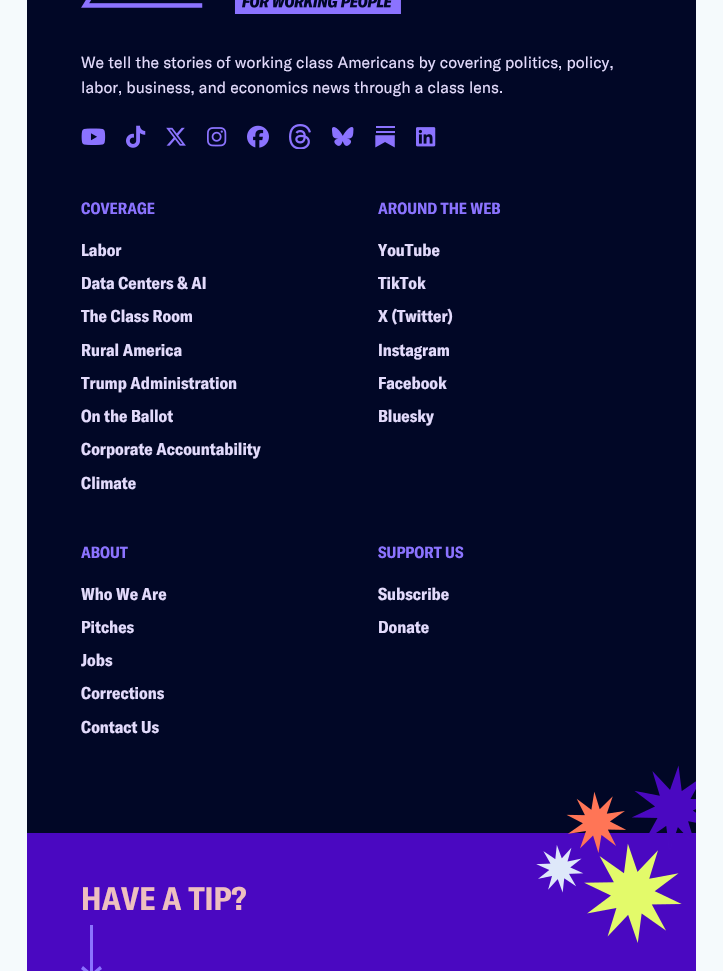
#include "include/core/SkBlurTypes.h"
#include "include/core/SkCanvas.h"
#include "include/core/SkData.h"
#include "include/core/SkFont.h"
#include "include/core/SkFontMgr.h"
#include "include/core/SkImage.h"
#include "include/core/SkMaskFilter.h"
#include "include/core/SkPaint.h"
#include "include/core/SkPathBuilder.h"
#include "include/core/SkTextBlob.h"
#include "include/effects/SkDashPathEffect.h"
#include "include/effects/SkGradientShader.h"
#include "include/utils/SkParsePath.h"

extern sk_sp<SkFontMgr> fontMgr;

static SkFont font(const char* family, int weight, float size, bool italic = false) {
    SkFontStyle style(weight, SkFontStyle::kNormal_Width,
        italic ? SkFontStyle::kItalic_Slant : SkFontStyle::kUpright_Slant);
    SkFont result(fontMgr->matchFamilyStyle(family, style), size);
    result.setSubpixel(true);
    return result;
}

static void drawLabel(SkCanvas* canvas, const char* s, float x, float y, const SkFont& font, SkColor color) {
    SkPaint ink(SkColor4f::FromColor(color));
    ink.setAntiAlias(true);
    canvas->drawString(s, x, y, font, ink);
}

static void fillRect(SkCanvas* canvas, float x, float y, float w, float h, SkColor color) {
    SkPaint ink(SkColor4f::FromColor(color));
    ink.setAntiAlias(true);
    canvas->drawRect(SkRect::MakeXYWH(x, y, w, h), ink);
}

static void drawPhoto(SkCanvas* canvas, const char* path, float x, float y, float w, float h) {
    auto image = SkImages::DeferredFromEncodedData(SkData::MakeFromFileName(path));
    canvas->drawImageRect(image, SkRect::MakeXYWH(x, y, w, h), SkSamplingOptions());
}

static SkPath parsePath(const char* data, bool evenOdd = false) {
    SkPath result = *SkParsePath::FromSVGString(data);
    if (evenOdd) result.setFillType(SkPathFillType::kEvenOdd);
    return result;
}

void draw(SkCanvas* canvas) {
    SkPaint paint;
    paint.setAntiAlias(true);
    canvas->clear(0xFFF5FAFC);
    fillRect(canvas, 27, 0, 669, 833, 0xFF010726);
    drawPhoto(canvas, "assets/img1.png", 81, 0, 320, 14);
    SkFont font1 = font("GT America", 400, 16);
    drawLabel(canvas, "We tell the stories of working class Americans by covering politics, policy,", 81, 68, font1, 0xFFE3DBFC);
    drawLabel(canvas, "labor, business, and economics news through a class lens.", 81, 93, font1, 0xFFE3DBFC);
    drawPhoto(canvas, "assets/img2.png", 81, 128, 25, 17);
    drawPhoto(canvas, "assets/img3.png", 126, 125, 20, 23);
    drawPhoto(canvas, "assets/img4.png", 166, 127, 20, 19);
    drawPhoto(canvas, "assets/img5.png", 207, 127, 20, 20);
    drawPhoto(canvas, "assets/img6.png", 247, 125, 22, 23);
    drawPhoto(canvas, "assets/img7.png", 289, 124, 22, 25);
    drawPhoto(canvas, "assets/img8.png", 331, 127, 23, 19);
    drawPhoto(canvas, "assets/img9.png", 375, 126, 20, 22);
    drawPhoto(canvas, "assets/img10.png", 416, 127, 20, 20);
    SkFont font2 = font("GT America", 700, 16);
    drawLabel(canvas, "COVERAGE", 81, 214, font2, 0xFF8B73FF);
    SkFont font3 = font("GT America", 700, 17);
    drawLabel(canvas, "Labor", 81, 256, font3, 0xFFE3DBFC);
    drawLabel(canvas, "Data Centers & AI", 81, 289, font3, 0xFFE3DBFC);
    drawLabel(canvas, "The Class Room", 81, 322, font3, 0xFFE3DBFC);
    drawLabel(canvas, "Rural America", 81, 356, font3, 0xFFE3DBFC);
    drawLabel(canvas, "Trump Administration", 81, 389, font3, 0xFFE3DBFC);
    drawLabel(canvas, "On the Ballot", 81, 422, font3, 0xFFE3DBFC);
    drawLabel(canvas, "Corporate Accountability", 81, 455, font3, 0xFFE3DBFC);
    drawLabel(canvas, "Climate", 81, 489, font3, 0xFFE3DBFC);
    drawLabel(canvas, "AROUND THE WEB", 378, 214, font2, 0xFF8B73FF);
    drawLabel(canvas, "YouTube", 378, 256, font3, 0xFFE3DBFC);
    drawLabel(canvas, "TikTok", 378, 289, font3, 0xFFE3DBFC);
    drawLabel(canvas, "X (Twitter)", 378, 322, font3, 0xFFE3DBFC);
    drawLabel(canvas, "Instagram", 378, 356, font3, 0xFFE3DBFC);
    drawLabel(canvas, "Facebook", 378, 389, font3, 0xFFE3DBFC);
    drawLabel(canvas, "Bluesky", 378, 422, font3, 0xFFE3DBFC);
    drawLabel(canvas, "ABOUT", 81, 558, font2, 0xFF8B73FF);
    drawLabel(canvas, "Who We Are", 81, 600, font3, 0xFFE3DBFC);
    drawLabel(canvas, "Pitches", 81, 633, font3, 0xFFE3DBFC);
    drawLabel(canvas, "Jobs", 81, 666, font3, 0xFFE3DBFC);
    drawLabel(canvas, "Corrections", 81, 699, font3, 0xFFE3DBFC);
    drawLabel(canvas, "Contact Us", 81, 733, font3, 0xFFE3DBFC);
    drawLabel(canvas, "SUPPORT US", 378, 558, font2, 0xFF8B73FF);
    drawLabel(canvas, "Subscribe", 378, 600, font3, 0xFFE3DBFC);
    drawLabel(canvas, "Donate", 378, 633, font3, 0xFFE3DBFC);
    fillRect(canvas, 27, 833, 669, 138, 0xFF4A08C1);
    SkFont font4 = font("GT America", 700, 32);
    drawLabel(canvas, "HAVE A TIP?", 81, 910, font4, 0xFFEEBFC0);
    paint.setColor(0xFF8B73FF);
    canvas->drawPath(parsePath("M90 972V925H93V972L100 966L102 969L91 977L81 969L83 966Z", true), paint);
    drawPhoto(canvas, "assets/img11.png", 536, 765, 160, 178);
}
